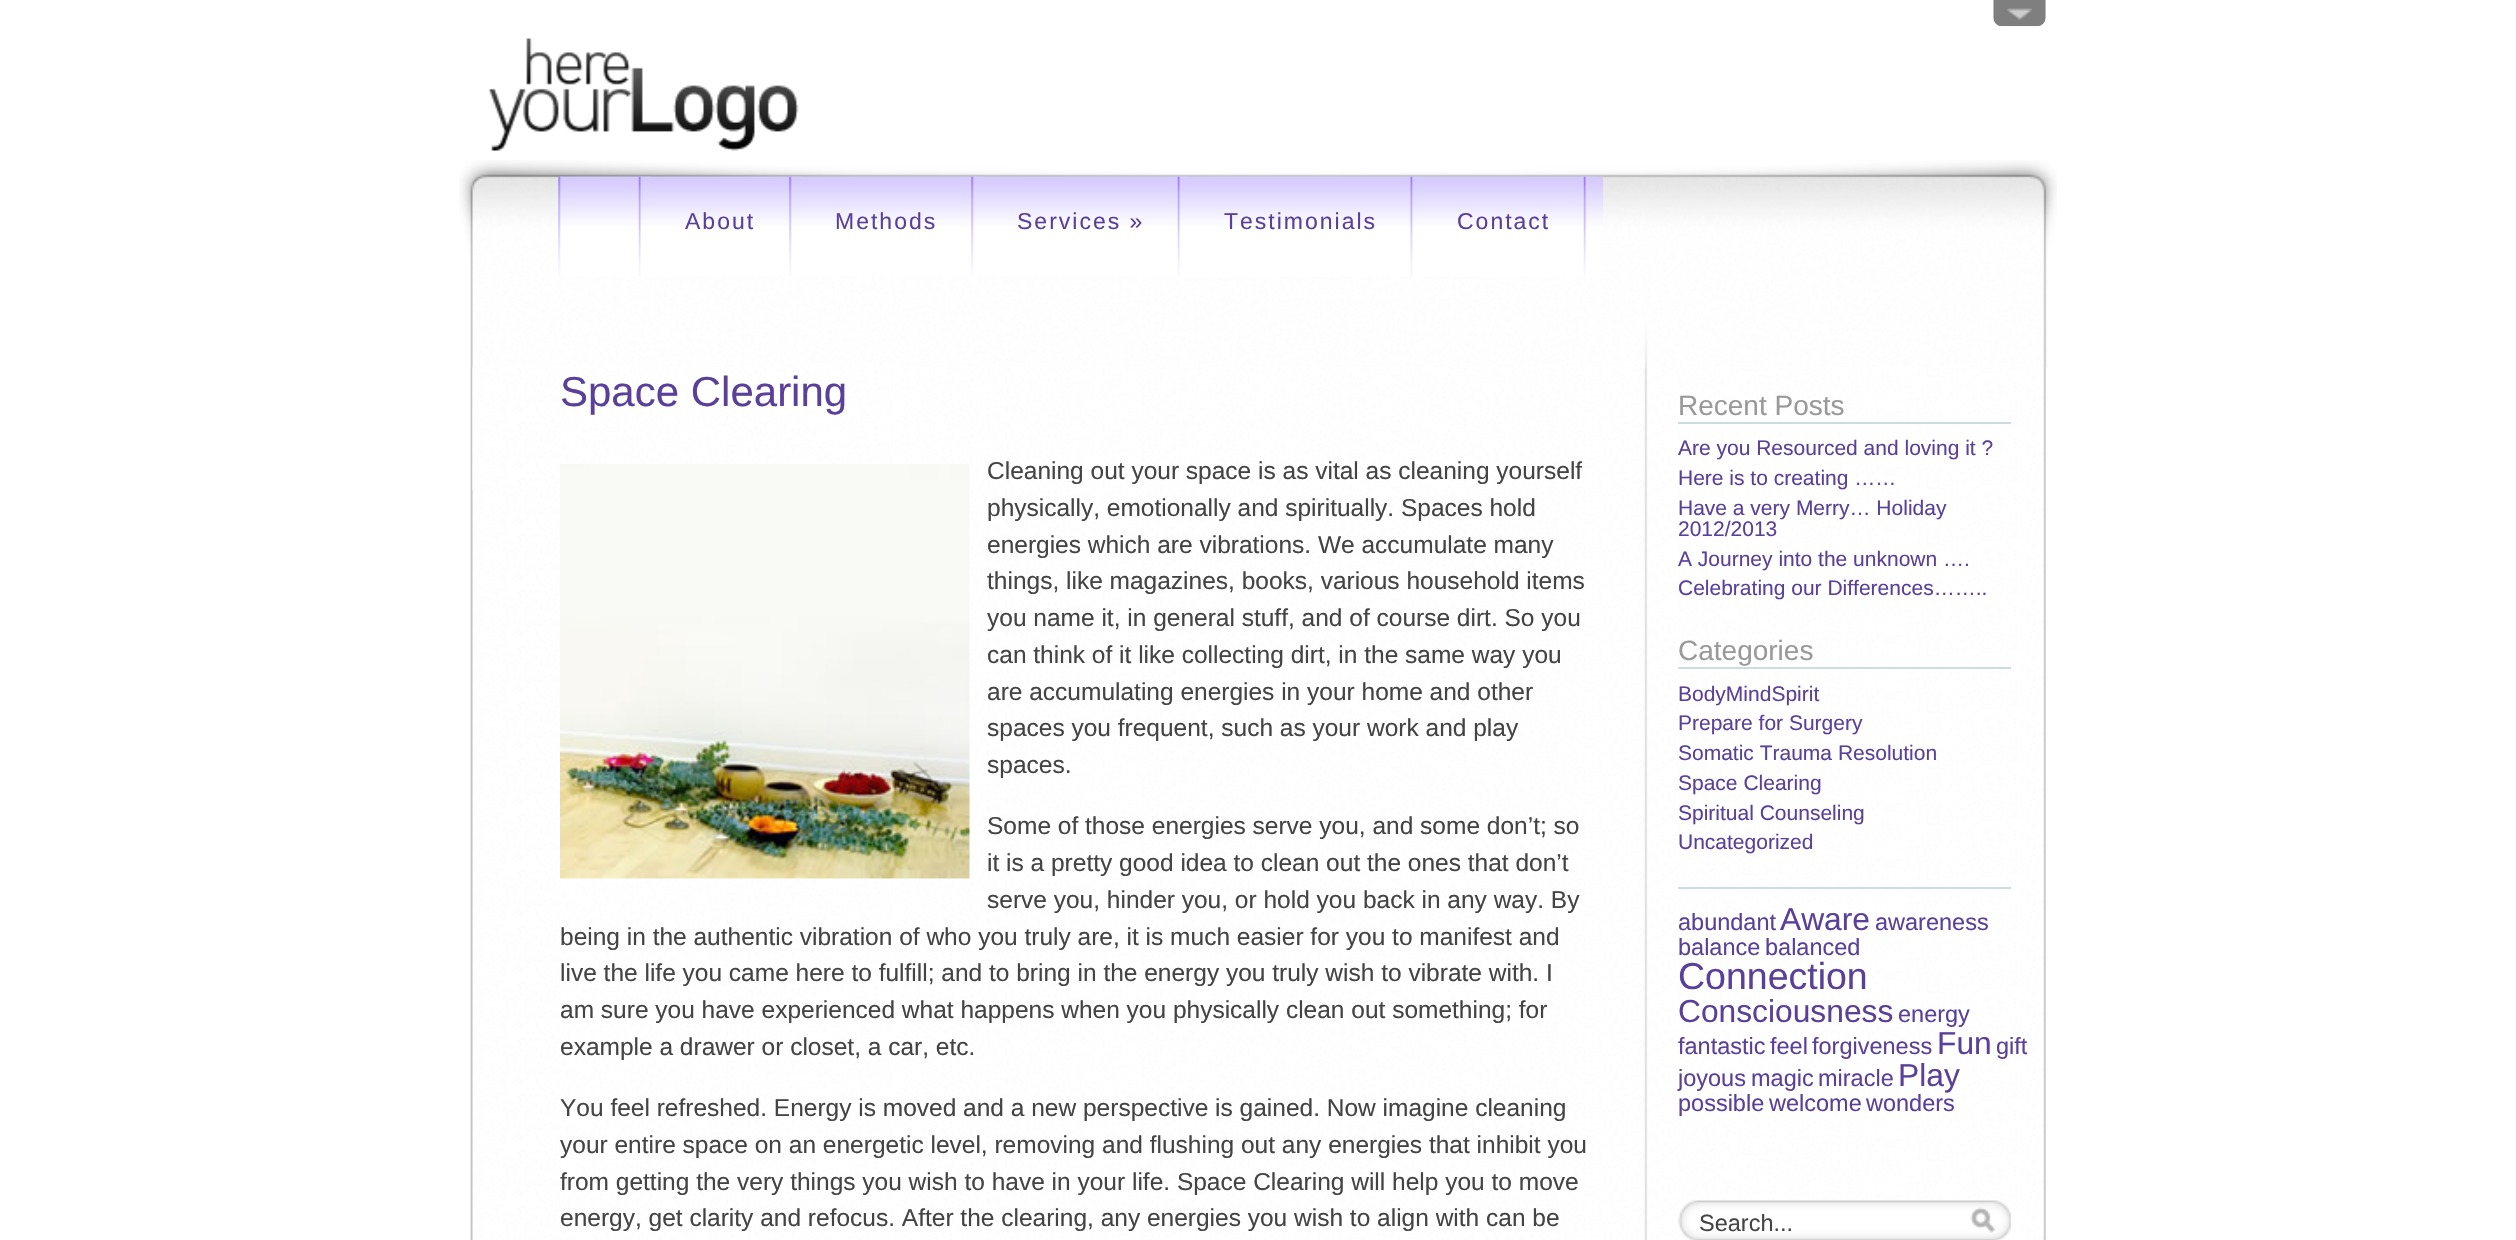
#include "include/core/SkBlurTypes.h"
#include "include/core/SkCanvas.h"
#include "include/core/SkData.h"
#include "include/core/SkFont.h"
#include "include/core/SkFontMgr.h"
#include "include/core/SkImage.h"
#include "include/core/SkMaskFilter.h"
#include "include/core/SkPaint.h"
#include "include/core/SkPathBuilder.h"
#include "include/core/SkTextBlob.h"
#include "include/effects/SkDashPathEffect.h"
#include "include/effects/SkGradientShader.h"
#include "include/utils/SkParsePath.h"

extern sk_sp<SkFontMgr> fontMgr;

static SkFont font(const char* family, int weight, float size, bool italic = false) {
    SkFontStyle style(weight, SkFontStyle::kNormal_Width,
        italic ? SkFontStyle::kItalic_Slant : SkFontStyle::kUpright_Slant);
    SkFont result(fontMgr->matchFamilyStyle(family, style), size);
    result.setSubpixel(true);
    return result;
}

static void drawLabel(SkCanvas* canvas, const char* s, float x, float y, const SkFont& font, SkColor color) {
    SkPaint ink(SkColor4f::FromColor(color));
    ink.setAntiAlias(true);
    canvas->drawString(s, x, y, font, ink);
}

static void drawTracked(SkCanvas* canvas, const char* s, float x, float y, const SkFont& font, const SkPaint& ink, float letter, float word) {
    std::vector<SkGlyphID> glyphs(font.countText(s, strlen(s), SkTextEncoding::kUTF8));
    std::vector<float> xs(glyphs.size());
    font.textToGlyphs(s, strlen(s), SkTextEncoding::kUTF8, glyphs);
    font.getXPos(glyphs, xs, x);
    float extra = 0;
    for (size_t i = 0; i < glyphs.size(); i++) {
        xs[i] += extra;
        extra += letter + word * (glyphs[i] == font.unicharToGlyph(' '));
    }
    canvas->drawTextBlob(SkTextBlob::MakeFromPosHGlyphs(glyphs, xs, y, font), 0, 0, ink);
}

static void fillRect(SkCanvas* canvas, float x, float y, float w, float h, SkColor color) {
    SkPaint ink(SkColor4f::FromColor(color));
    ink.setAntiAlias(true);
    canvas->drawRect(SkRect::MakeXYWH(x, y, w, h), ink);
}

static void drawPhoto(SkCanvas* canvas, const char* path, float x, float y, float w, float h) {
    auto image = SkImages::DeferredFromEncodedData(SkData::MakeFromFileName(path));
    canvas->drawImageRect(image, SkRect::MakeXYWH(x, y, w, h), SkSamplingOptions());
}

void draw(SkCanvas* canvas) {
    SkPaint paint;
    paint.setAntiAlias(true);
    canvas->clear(0xFFFFFFFF);
    drawPhoto(canvas, "assets/img1.png", 459, 160, 1598, 208);
    drawPhoto(canvas, "assets/img2.png", 1993, 0, 53, 27);
    drawPhoto(canvas, "assets/img3.png", 2007, 8, 25, 12);
    drawPhoto(canvas, "assets/img4.png", 488, 38, 311, 113);
    drawPhoto(canvas, "assets/img5.png", 558, 176, 93, 100);
    drawPhoto(canvas, "assets/img6.png", 638, 176, 164, 100);
    SkFont font1 = font("Liberation Sans", 400, 23);
    paint.setColor(0xFF5A4099);
    drawTracked(canvas, "About", 685, 229, font1, paint, 2, 0);
    drawPhoto(canvas, "assets/img7.png", 789, 176, 195, 100);
    drawTracked(canvas, "Methods", 835, 229, font1, paint, 2, 0);
    drawPhoto(canvas, "assets/img8.png", 971, 176, 219, 100);
    drawTracked(canvas, "Services »", 1017, 229, font1, paint, 2, 0);
    drawPhoto(canvas, "assets/img9.png", 1177, 176, 246, 101);
    drawTracked(canvas, "Testimonials", 1224, 229, font1, paint, 2, 0);
    drawPhoto(canvas, "assets/img10.png", 1410, 176, 186, 101);
    drawTracked(canvas, "Contact", 1457, 229, font1, paint, 2, 0);
    drawPhoto(canvas, "assets/img11.png", 1583, 176, 20, 101);
    drawPhoto(canvas, "assets/img12.png", 470, 367, 1576, 873);
    drawPhoto(canvas, "assets/img13.png", 472, 367, 1, 123);
    SkFont font2 = font("Liberation Sans", 400, 42);
    drawLabel(canvas, "Space Clearing", 560, 406, font2, 0xFF5A4099);
    drawPhoto(canvas, "assets/img14.png", 560, 464, 410, 415);
    SkFont font3 = font("Liberation Sans", 400, 24.5f);
    drawLabel(canvas, "Cleaning out your space is as vital as cleaning yourself", 987, 479, font3, 0xFF444444);
    drawLabel(canvas, "physically, emotionally and spiritually. Spaces hold", 987, 516, font3, 0xFF444444);
    drawLabel(canvas, "energies which are vibrations. We accumulate many", 987, 553, font3, 0xFF444444);
    drawLabel(canvas, "things, like magazines, books, various household items", 987, 589, font3, 0xFF444444);
    drawLabel(canvas, "you name it, in general stuff, and of course dirt. So you", 987, 626, font3, 0xFF444444);
    drawLabel(canvas, "can think of it like collecting dirt, in the same way you", 987, 663, font3, 0xFF444444);
    drawLabel(canvas, "are accumulating energies in your home and other", 987, 700, font3, 0xFF444444);
    drawLabel(canvas, "spaces you frequent, such as your work and play", 987, 736, font3, 0xFF444444);
    drawLabel(canvas, "spaces.", 987, 773, font3, 0xFF444444);
    drawLabel(canvas, "Some of those energies serve you, and some don’t; so", 987, 834, font3, 0xFF444444);
    drawLabel(canvas, "it is a pretty good idea to clean out the ones that don’t", 987, 871, font3, 0xFF444444);
    drawLabel(canvas, "serve you, hinder you, or hold you back in any way. By", 987, 908, font3, 0xFF444444);
    drawLabel(canvas, "being in the authentic vibration of who you truly are, it is much easier for you to manifest and", 560, 945, font3, 0xFF444444);
    drawLabel(canvas, "live the life you came here to fulfill; and to bring in the energy you truly wish to vibrate with. I", 560, 981, font3, 0xFF444444);
    drawLabel(canvas, "am sure you have experienced what happens when you physically clean out something; for", 560, 1018, font3, 0xFF444444);
    drawLabel(canvas, "example a drawer or closet, a car, etc.", 560, 1055, font3, 0xFF444444);
    drawLabel(canvas, "You feel refreshed. Energy is moved and a new perspective is gained. Now imagine cleaning", 560, 1116, font3, 0xFF444444);
    drawLabel(canvas, "your entire space on an energetic level, removing and flushing out any energies that inhibit you", 560, 1153, font3, 0xFF444444);
    drawLabel(canvas, "from getting the very things you wish to have in your life. Space Clearing will help you to move", 560, 1190, font3, 0xFF444444);
    drawLabel(canvas, "energy, get clarity and refocus. After the clearing, any energies you wish to align with can be", 560, 1226, font3, 0xFF444444);
    fillRect(canvas, 1678, 422, 333, 2, 0xFFCCDDDD);
    SkFont font4 = font("Liberation Sans", 400, 28);
    drawLabel(canvas, "Recent Posts", 1678, 415, font4, 0xFF999999);
    SkFont font5 = font("Liberation Sans", 400, 21);
    drawLabel(canvas, "Are you Resourced and loving it ?", 1678, 455, font5, 0xFF5A4099);
    drawLabel(canvas, "Here is to creating ……", 1678, 485, font5, 0xFF5A4099);
    drawLabel(canvas, "Have a very Merry… Holiday", 1678, 515, font5, 0xFF5A4099);
    drawLabel(canvas, "2012/2013", 1678, 536, font5, 0xFF5A4099);
    drawLabel(canvas, "A Journey into the unknown ….", 1678, 566, font5, 0xFF5A4099);
    drawLabel(canvas, "Celebrating our Differences……..", 1678, 595, font5, 0xFF5A4099);
    fillRect(canvas, 1678, 667, 333, 2, 0xFFCCDDDD);
    drawLabel(canvas, "Categories", 1678, 660, font4, 0xFF999999);
    drawLabel(canvas, "BodyMindSpirit", 1678, 701, font5, 0xFF5A4099);
    drawLabel(canvas, "Prepare for Surgery", 1678, 730, font5, 0xFF5A4099);
    drawLabel(canvas, "Somatic Trauma Resolution", 1678, 760, font5, 0xFF5A4099);
    drawLabel(canvas, "Space Clearing", 1678, 790, font5, 0xFF5A4099);
    drawLabel(canvas, "Spiritual Counseling", 1678, 820, font5, 0xFF5A4099);
    drawLabel(canvas, "Uncategorized", 1678, 849, font5, 0xFF5A4099);
    fillRect(canvas, 1678, 887, 333, 2, 0xFFCCDDDD);
    SkFont font6 = font("Liberation Sans", 400, 23.5f);
    drawLabel(canvas, "abundant", 1678, 930, font6, 0xFF5A4099);
    SkFont font7 = font("Liberation Sans", 400, 31.75f);
    drawLabel(canvas, "Aware", 1780, 930, font7, 0xFF5A4099);
    drawLabel(canvas, "awareness", 1875, 930, font6, 0xFF5A4099);
    drawLabel(canvas, "balance", 1678, 955, font6, 0xFF5A4099);
    drawLabel(canvas, "balanced", 1765, 955, font6, 0xFF5A4099);
    SkFont font8 = font("Liberation Sans", 400, 37.5f);
    drawLabel(canvas, "Connection", 1678, 989, font8, 0xFF5A4099);
    drawLabel(canvas, "Consciousness", 1678, 1022, font7, 0xFF5A4099);
    drawLabel(canvas, "energy", 1898, 1022, font6, 0xFF5A4099);
    drawLabel(canvas, "fantastic", 1678, 1054, font6, 0xFF5A4099);
    drawLabel(canvas, "feel", 1770, 1054, font6, 0xFF5A4099);
    drawLabel(canvas, "forgiveness", 1812, 1054, font6, 0xFF5A4099);
    drawLabel(canvas, "Fun", 1937, 1054, font7, 0xFF5A4099);
    drawLabel(canvas, "gift", 1996, 1054, font6, 0xFF5A4099);
    drawLabel(canvas, "joyous", 1678, 1086, font6, 0xFF5A4099);
    drawLabel(canvas, "magic", 1751, 1086, font6, 0xFF5A4099);
    drawLabel(canvas, "miracle", 1818, 1086, font6, 0xFF5A4099);
    drawLabel(canvas, "Play", 1898, 1086, font7, 0xFF5A4099);
    drawLabel(canvas, "possible", 1678, 1111, font6, 0xFF5A4099);
    drawLabel(canvas, "welcome", 1769, 1111, font6, 0xFF5A4099);
    drawLabel(canvas, "wonders", 1866, 1111, font6, 0xFF5A4099);
    drawPhoto(canvas, "assets/img15.png", 1678, 1200, 333, 40);
    drawLabel(canvas, "Search...", 1699, 1231, font6, 0xFF444444);
}
